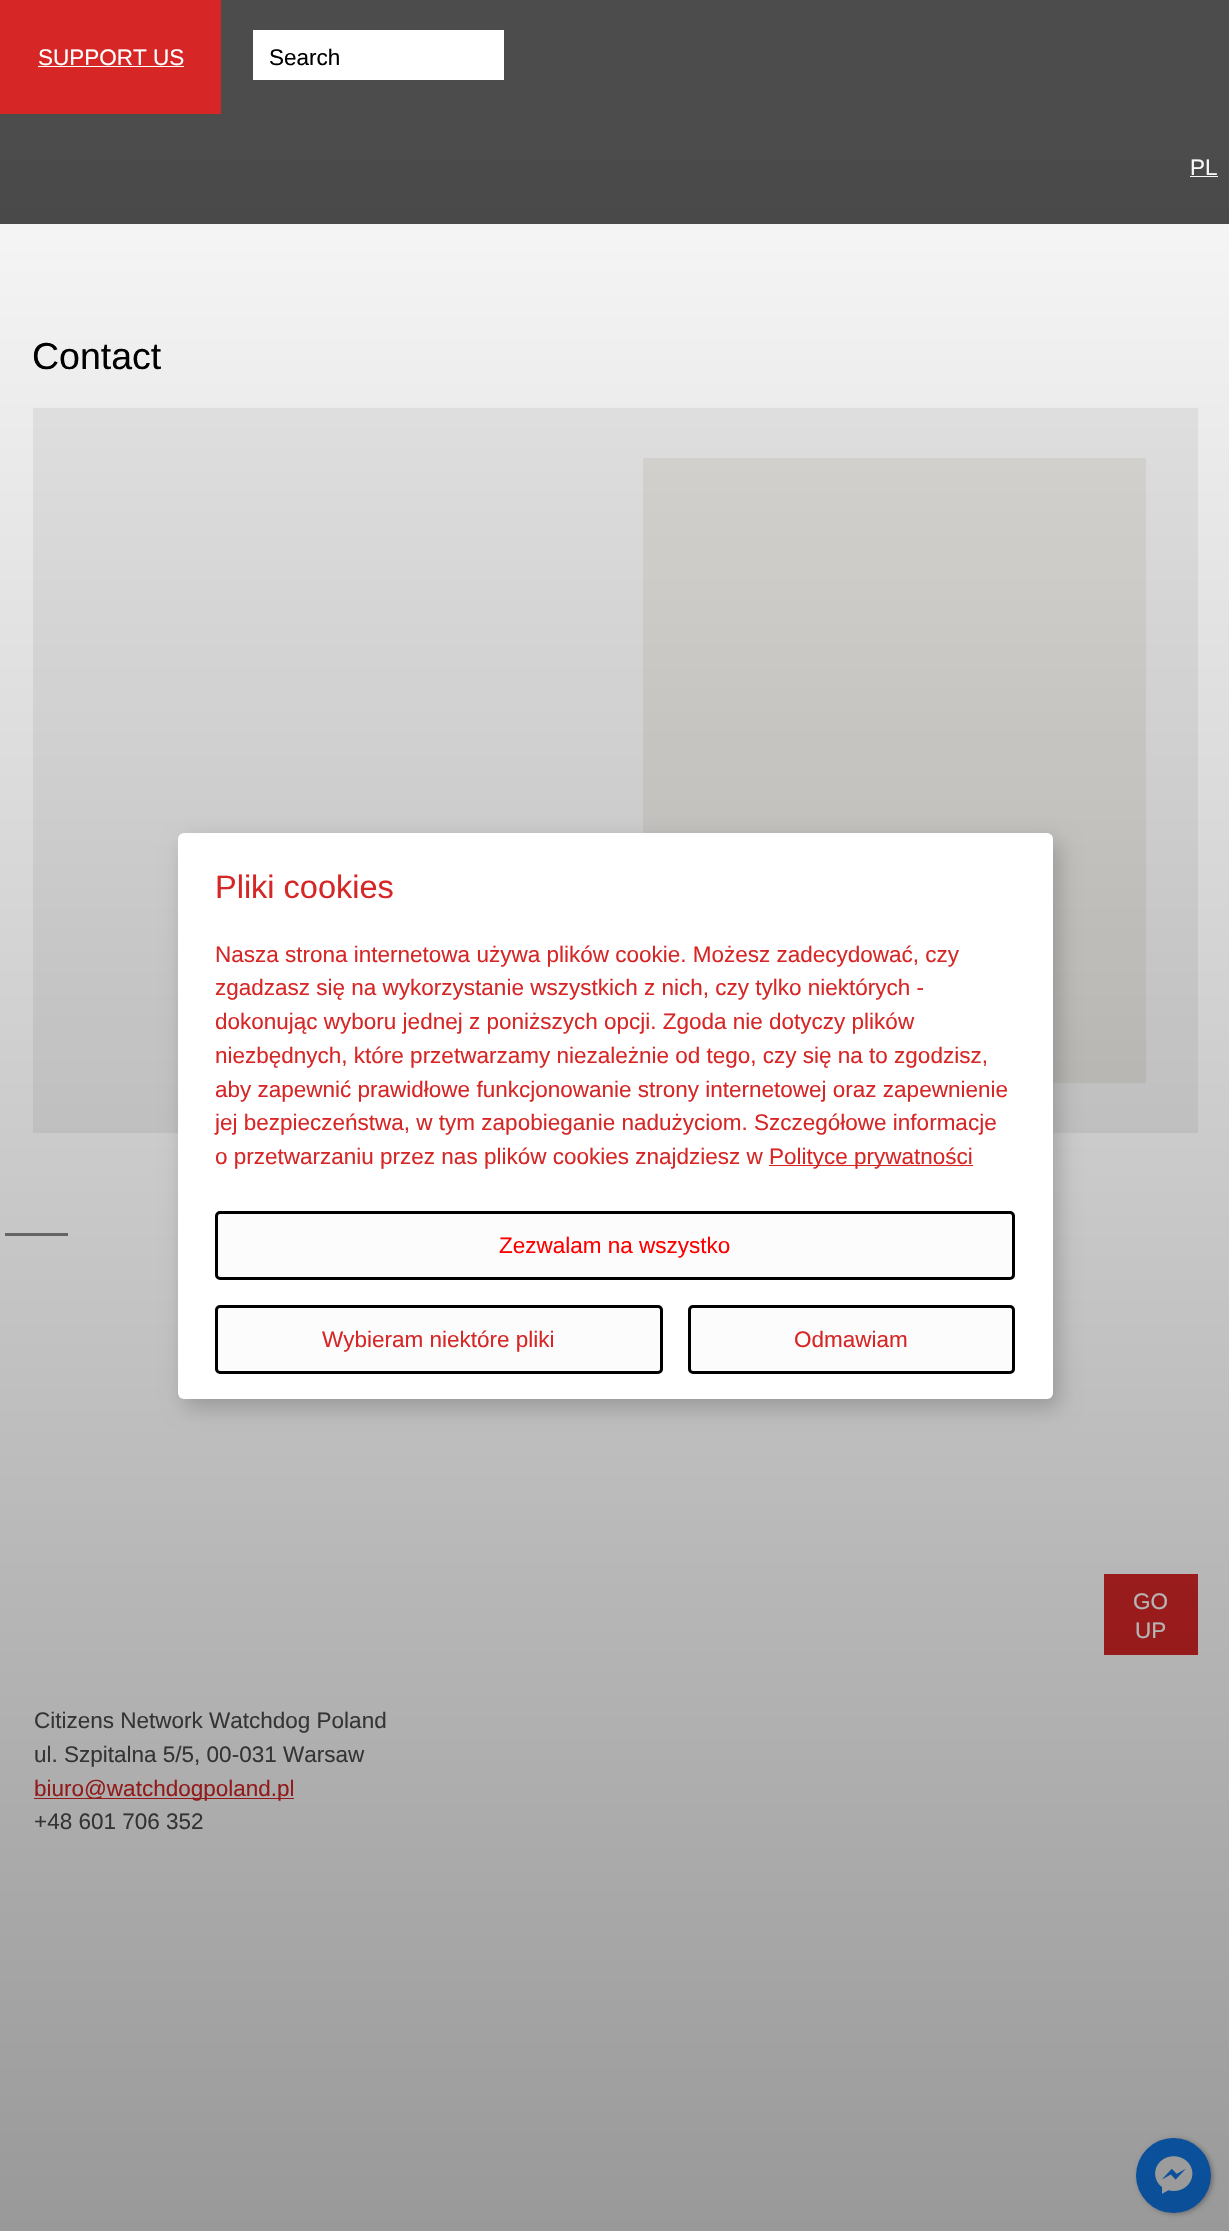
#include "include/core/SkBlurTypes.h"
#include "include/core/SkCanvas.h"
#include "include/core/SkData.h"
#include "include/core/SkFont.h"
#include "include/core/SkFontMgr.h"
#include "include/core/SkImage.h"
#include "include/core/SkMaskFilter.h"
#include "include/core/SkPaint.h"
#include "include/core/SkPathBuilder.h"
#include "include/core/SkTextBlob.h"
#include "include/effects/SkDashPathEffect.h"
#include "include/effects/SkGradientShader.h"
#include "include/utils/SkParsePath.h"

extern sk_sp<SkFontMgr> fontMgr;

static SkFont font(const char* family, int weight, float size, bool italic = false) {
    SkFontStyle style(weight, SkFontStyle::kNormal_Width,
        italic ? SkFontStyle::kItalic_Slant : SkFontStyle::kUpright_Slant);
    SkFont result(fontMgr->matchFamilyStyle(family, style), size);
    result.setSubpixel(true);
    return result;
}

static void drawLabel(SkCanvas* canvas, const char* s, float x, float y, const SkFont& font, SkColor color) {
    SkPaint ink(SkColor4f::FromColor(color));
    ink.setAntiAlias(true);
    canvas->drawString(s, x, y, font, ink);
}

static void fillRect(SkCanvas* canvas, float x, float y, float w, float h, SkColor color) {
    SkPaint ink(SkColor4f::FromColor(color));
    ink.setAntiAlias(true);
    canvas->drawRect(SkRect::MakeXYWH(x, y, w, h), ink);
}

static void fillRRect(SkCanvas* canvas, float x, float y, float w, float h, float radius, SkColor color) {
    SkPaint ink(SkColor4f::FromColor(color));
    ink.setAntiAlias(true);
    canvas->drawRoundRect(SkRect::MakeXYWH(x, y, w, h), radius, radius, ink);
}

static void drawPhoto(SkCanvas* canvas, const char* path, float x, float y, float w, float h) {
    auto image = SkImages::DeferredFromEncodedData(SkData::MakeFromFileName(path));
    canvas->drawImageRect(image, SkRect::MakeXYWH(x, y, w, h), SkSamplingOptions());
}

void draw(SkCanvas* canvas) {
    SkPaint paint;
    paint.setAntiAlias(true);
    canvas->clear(0xFFFFFFFF);
    fillRect(canvas, 0, 0, 1229, 224, 0xFF4C4C4C);
    fillRect(canvas, 0, 0, 221, 114, 0xFFD72626);
    SkFont font1 = font("Liberation Sans", 400, 22.5f);
    drawLabel(canvas, "SUPPORT US", 38, 65, font1, 0xFFFFFFFF);
    fillRect(canvas, 38, 66, 146, 1, 0xFFFFFFFF);
    fillRect(canvas, 253, 30, 251, 50, 0xFFFFFFFF);
    drawLabel(canvas, "Search", 269, 65, font1, 0xFF000000);
    drawLabel(canvas, "PL", 1190, 175, font1, 0xFFFFFFFF);
    fillRect(canvas, 1190, 176, 28, 1, 0xFFFFFFFF);
    SkFont font2 = font("Liberation Sans", 400, 37.5f);
    drawLabel(canvas, "Contact", 32, 369, font2, 0xFF000000);
    fillRect(canvas, 33, 408, 1165, 725, 0xFFF0F0F0);
    fillRect(canvas, 643, 458, 503, 625, 0xFFE5E3DF);
    fillRect(canvas, 5, 1233, 63, 3, 0xFF808080);
    fillRect(canvas, 1104, 1574, 94, 81, 0xFFD72626);
    drawLabel(canvas, "GO", 1133, 1609, font1, 0xFFFFFFFF);
    drawLabel(canvas, "UP", 1135, 1638, font1, 0xFFFFFFFF);
    drawLabel(canvas, "Citizens Network Watchdog Poland", 34, 1728, font1, 0xFF4C4C4C);
    drawLabel(canvas, "ul. Szpitalna 5/5, 00-031 Warsaw", 34, 1762, font1, 0xFF4C4C4C);
    fillRect(canvas, 34, 1798, 260, 1, 0xFFD72626);
    drawLabel(canvas, "biuro@watchdogpoland.pl", 34, 1796, font1, 0xFFD72626);
    drawLabel(canvas, "+48 601 706 352", 34, 1829, font1, 0xFF4C4C4C);
    paint.setColor(0x4D000000);
    paint.setMaskFilter(SkMaskFilter::MakeBlur(kNormal_SkBlurStyle, 2.5f));
    canvas->drawRoundRect(SkRect::MakeXYWH(1138, 2139, 75, 75), 37.5f, 37.5f, paint);
    paint.setMaskFilter(nullptr);
    paint.setColor(0xFF1182FC);
    canvas->drawCircle(1173.5f, 2175.5f, 37.5f, paint);
    drawPhoto(canvas, "assets/img1.png", 1155, 2156, 38, 38);
    {
        const SkColor colors[] = {0x66000000, 0x00000000};
        const float stops[] = {0, 1};
        const SkPoint ends[] = {{615, 2231}, {615, 0}};
        paint.setShader(SkGradientShader::MakeLinear(ends, colors, stops, 2, SkTileMode::kClamp));
        paint.setAlpha(255);
    }
    canvas->drawRect(SkRect::MakeXYWH(0, 159, 1229, 2072), paint);
    paint.setShader(nullptr);
    paint.setColor(0x33000000);
    paint.setMaskFilter(SkMaskFilter::MakeBlur(kNormal_SkBlurStyle, 10.5f));
    canvas->drawRoundRect(SkRect::MakeXYWH(184, 841, 875, 567), 6, 6, paint);
    paint.setMaskFilter(nullptr);
    fillRRect(canvas, 178, 833, 875, 566, 6, 0xFFFFFFFF);
    SkFont font3 = font("Liberation Sans", 400, 32.5f);
    drawLabel(canvas, "Pliki cookies", 215, 898, font3, 0xFFD72626);
    drawLabel(canvas, "Nasza strona internetowa używa plików cookie. Możesz zadecydować, czy", 215, 962, font1, 0xFFD72626);
    drawLabel(canvas, "zgadzasz się na wykorzystanie wszystkich z nich, czy tylko niektórych -", 215, 995, font1, 0xFFD72626);
    drawLabel(canvas, "dokonując wyboru jednej z poniższych opcji. Zgoda nie dotyczy plików", 215, 1029, font1, 0xFFD72626);
    drawLabel(canvas, "niezbędnych, które przetwarzamy niezależnie od tego, czy się na to zgodzisz,", 215, 1063, font1, 0xFFD72626);
    drawLabel(canvas, "aby zapewnić prawidłowe funkcjonowanie strony internetowej oraz zapewnienie", 215, 1097, font1, 0xFFD72626);
    drawLabel(canvas, "jej bezpieczeństwa, w tym zapobieganie nadużyciom. Szczegółowe informacje", 215, 1130, font1, 0xFFD72626);
    drawLabel(canvas, "o przetwarzaniu przez nas plików cookies znajdziesz w", 215, 1164, font1, 0xFFD72626);
    fillRect(canvas, 769, 1165, 204, 1, 0xFFD72626);
    drawLabel(canvas, "Polityce prywatności", 769, 1164, font1, 0xFFD72626);
    paint.setColor(0xFFFCFCFC);
    canvas->drawRoundRect(SkRect::MakeXYWH(216.5f, 1212.5f, 797, 66), 3.5f, 3.5f, paint);
    paint.setStroke(true);
    paint.setStrokeWidth(3);
    paint.setColor(0xFF000000);
    canvas->drawRoundRect(SkRect::MakeXYWH(216.5f, 1212.5f, 797, 66), 3.5f, 3.5f, paint);
    drawLabel(canvas, "Zezwalam na wszystko", 499, 1253, font1, 0xFFFF0000);
    paint.setStroke(false);
    paint.setColor(0xFFFCFCFC);
    canvas->drawRoundRect(SkRect::MakeXYWH(216.5f, 1306.5f, 445, 66), 3.5f, 3.5f, paint);
    paint.setStroke(true);
    paint.setColor(0xFF000000);
    canvas->drawRoundRect(SkRect::MakeXYWH(216.5f, 1306.5f, 445, 66), 3.5f, 3.5f, paint);
    drawLabel(canvas, "Wybieram niektóre pliki", 322, 1347, font1, 0xFFD72626);
    paint.setStroke(false);
    paint.setColor(0xFFFCFCFC);
    canvas->drawRoundRect(SkRect::MakeXYWH(689.5f, 1306.5f, 324, 66), 3.5f, 3.5f, paint);
    paint.setStroke(true);
    paint.setColor(0xFF000000);
    canvas->drawRoundRect(SkRect::MakeXYWH(689.5f, 1306.5f, 324, 66), 3.5f, 3.5f, paint);
    drawLabel(canvas, "Odmawiam", 794, 1347, font1, 0xFFD72626);
}
